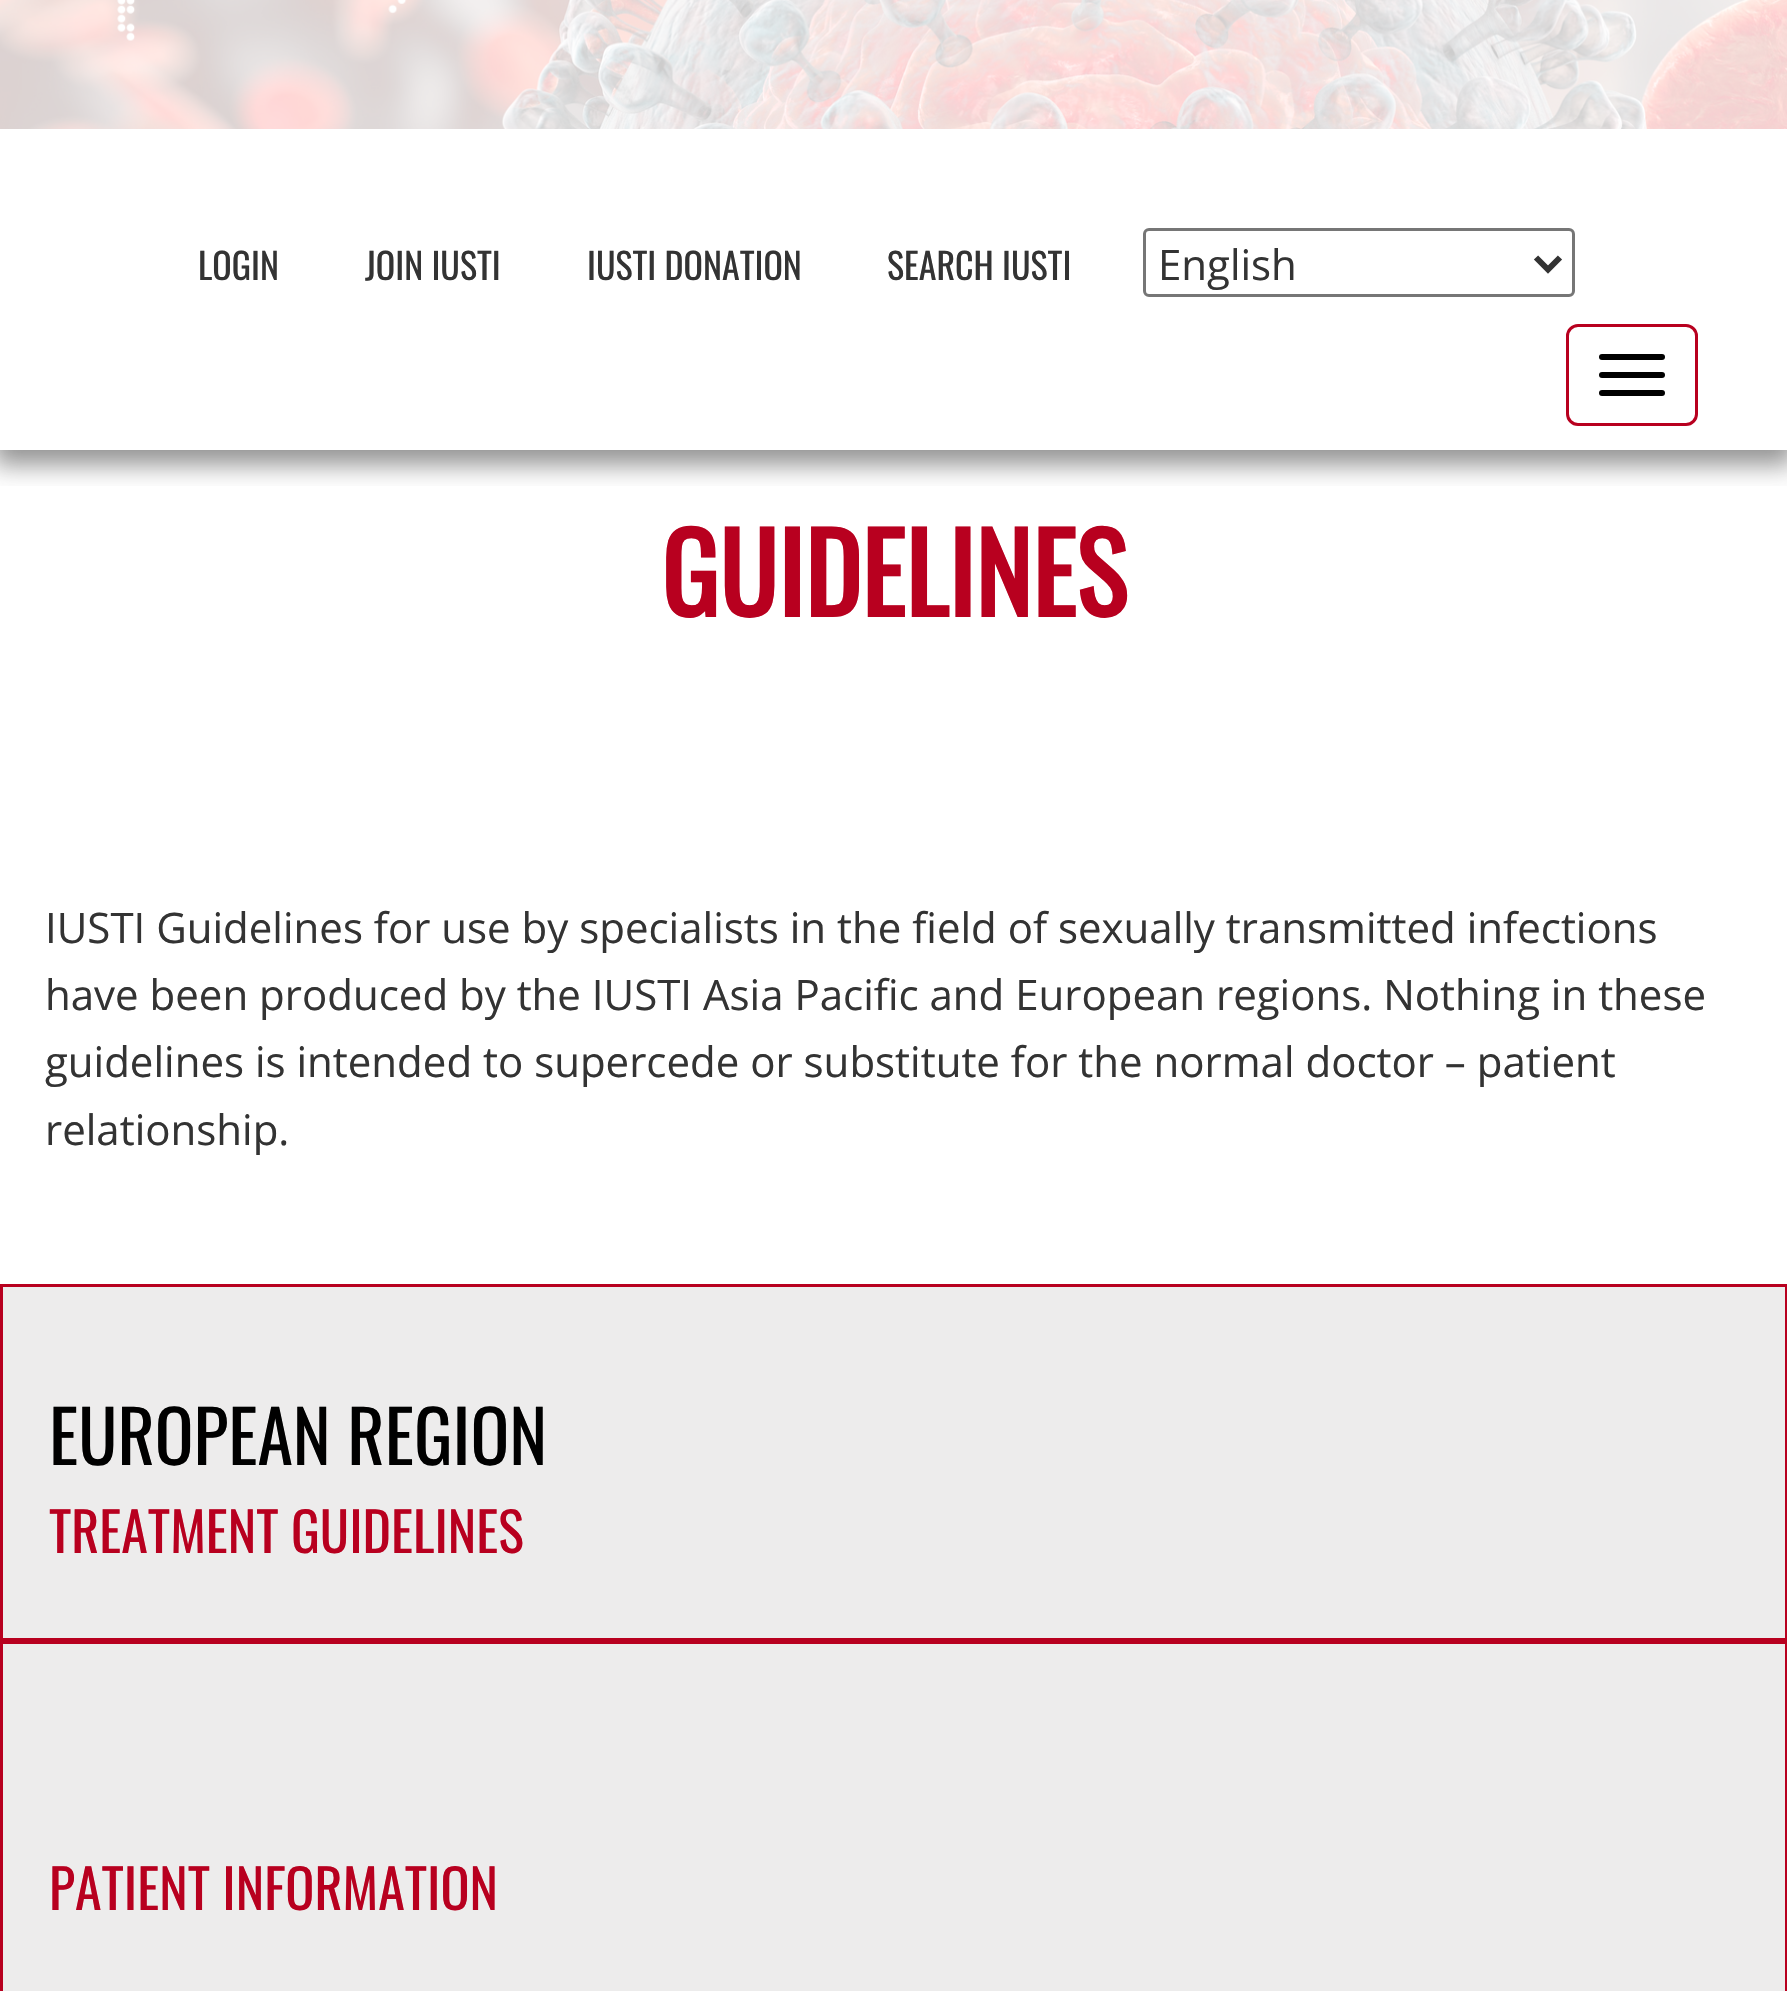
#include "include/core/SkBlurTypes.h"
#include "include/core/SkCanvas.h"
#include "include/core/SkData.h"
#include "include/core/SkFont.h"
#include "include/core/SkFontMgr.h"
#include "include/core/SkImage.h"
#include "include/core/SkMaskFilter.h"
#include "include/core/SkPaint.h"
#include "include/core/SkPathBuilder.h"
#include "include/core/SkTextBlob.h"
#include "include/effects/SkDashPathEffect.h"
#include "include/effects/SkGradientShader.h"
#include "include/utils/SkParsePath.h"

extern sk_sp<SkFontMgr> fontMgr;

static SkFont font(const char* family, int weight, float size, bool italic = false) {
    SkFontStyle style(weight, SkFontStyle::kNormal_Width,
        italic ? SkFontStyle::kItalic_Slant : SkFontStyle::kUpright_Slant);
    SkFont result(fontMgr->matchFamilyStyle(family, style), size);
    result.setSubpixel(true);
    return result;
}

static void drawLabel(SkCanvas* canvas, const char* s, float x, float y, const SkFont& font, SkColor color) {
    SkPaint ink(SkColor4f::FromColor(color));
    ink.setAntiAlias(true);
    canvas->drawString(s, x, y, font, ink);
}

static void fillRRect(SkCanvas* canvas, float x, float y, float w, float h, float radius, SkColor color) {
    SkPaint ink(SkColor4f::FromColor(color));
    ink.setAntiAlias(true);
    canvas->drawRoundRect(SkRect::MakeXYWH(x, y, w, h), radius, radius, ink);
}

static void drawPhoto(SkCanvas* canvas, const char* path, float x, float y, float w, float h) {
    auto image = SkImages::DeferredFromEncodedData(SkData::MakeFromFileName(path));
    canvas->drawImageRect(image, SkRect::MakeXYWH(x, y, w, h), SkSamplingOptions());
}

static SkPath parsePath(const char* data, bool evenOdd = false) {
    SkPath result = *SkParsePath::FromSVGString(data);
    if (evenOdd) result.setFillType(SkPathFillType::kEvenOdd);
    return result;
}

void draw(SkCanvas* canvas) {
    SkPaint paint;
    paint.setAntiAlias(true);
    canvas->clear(0xFFFFFFFF);
    drawPhoto(canvas, "assets/img1.png", 0, 0, 1787, 129);
    canvas->save();
    canvas->clipRect(SkRect::MakeXYWH(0, 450, 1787, 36));
    paint.setColor(0x80262626);
    paint.setMaskFilter(SkMaskFilter::MakeBlur(kNormal_SkBlurStyle, 12));
    canvas->drawRect(SkRect::MakeXYWH(-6, -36, 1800, 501), paint);
    paint.setMaskFilter(nullptr);
    canvas->restore();
    SkFont font1 = font("Oswald", 400, 36);
    drawLabel(canvas, "LOGIN", 198, 280, font1, 0xFF333333);
    drawLabel(canvas, "JOIN IUSTI", 365, 280, font1, 0xFF333333);
    drawLabel(canvas, "IUSTI DONATION", 587, 280, font1, 0xFF333333);
    drawLabel(canvas, "SEARCH IUSTI", 887, 280, font1, 0xFF333333);
    paint.setStroke(true);
    paint.setStrokeWidth(3);
    paint.setColor(0xFF767676);
    canvas->drawRoundRect(SkRect::MakeXYWH(1144.5f, 229.5f, 429, 66), 4.5f, 4.5f, paint);
    paint.setStrokeWidth(6);
    paint.setColor(0xFF333333);
    canvas->drawPath(parsePath("M1536 257.5L1548 269.5L1560 257.5"), paint);
    SkFont font2 = font("Open Sans", 400, 42);
    drawLabel(canvas, "English", 1158, 280, font2, 0xFF333333);
    paint.setStrokeWidth(3);
    paint.setColor(0xFFB8001F);
    canvas->drawRoundRect(SkRect::MakeXYWH(1567.5f, 325.5f, 129, 99), 10.5f, 10.5f, paint);
    fillRRect(canvas, 1599, 354, 66, 6, 3, 0xFF000000);
    fillRRect(canvas, 1599, 372, 66, 6, 3, 0xFF000000);
    fillRRect(canvas, 1599, 390, 66, 6, 3, 0xFF000000);
    SkFont font3 = font("Oswald", 700, 108);
    drawLabel(canvas, "GUIDELINES", 661, 617, font3, 0xFFB8001F);
    drawLabel(canvas, "IUSTI Guidelines for use by specialists in the field of sexually transmitted infections", 45, 943, font2, 0xFF333333);
    drawLabel(canvas, "have been produced by the IUSTI Asia Pacific and European regions. Nothing in these", 45, 1010, font2, 0xFF333333);
    drawLabel(canvas, "guidelines is intended to supercede or substitute for the normal doctor – patient", 45, 1077, font2, 0xFF333333);
    drawLabel(canvas, "relationship.", 45, 1145, font2, 0xFF333333);
    paint.setStroke(false);
    paint.setColor(0xFFEDECEC);
    canvas->drawRect(SkRect::MakeXYWH(1.5f, 1285.5f, 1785, 354), paint);
    paint.setStroke(true);
    paint.setColor(0xFFB8001F);
    canvas->drawRect(SkRect::MakeXYWH(1.5f, 1285.5f, 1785, 354), paint);
    SkFont font4 = font("Oswald", 400, 72);
    drawLabel(canvas, "EUROPEAN REGION", 49, 1465, font4, 0xFF000000);
    SkFont font5 = font("Oswald", 400, 54);
    drawLabel(canvas, "TREATMENT GUIDELINES", 49, 1553, font5, 0xFFB8001F);
    paint.setStroke(false);
    paint.setColor(0xFFEDECEC);
    canvas->drawRect(SkRect::MakeXYWH(1.5f, 1642.5f, 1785, 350), paint);
    paint.setStroke(true);
    paint.setColor(0xFFB8001F);
    canvas->drawRect(SkRect::MakeXYWH(1.5f, 1642.5f, 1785, 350), paint);
    drawLabel(canvas, "PATIENT INFORMATION", 49, 1910, font5, 0xFFB8001F);
}
